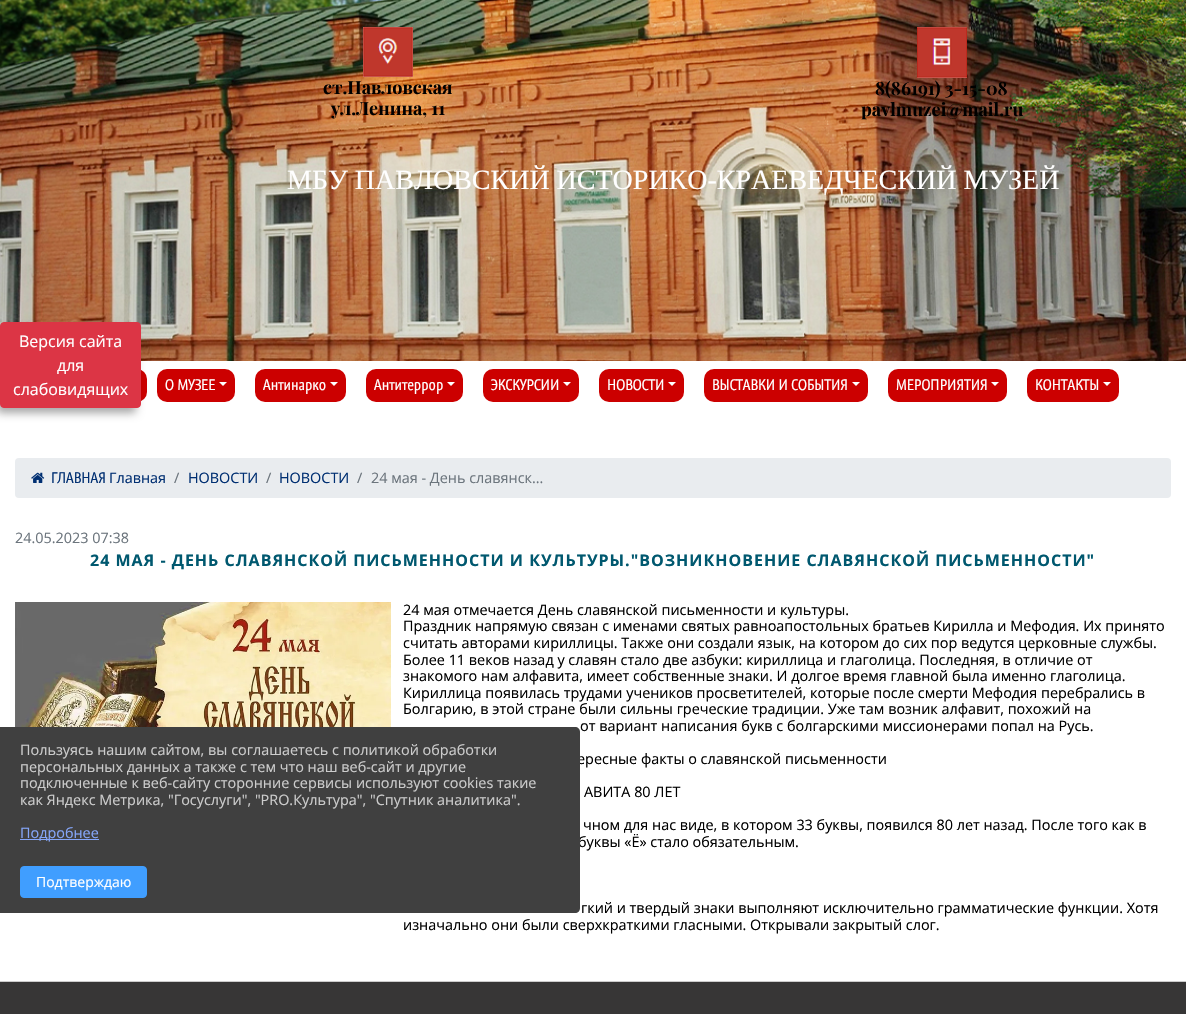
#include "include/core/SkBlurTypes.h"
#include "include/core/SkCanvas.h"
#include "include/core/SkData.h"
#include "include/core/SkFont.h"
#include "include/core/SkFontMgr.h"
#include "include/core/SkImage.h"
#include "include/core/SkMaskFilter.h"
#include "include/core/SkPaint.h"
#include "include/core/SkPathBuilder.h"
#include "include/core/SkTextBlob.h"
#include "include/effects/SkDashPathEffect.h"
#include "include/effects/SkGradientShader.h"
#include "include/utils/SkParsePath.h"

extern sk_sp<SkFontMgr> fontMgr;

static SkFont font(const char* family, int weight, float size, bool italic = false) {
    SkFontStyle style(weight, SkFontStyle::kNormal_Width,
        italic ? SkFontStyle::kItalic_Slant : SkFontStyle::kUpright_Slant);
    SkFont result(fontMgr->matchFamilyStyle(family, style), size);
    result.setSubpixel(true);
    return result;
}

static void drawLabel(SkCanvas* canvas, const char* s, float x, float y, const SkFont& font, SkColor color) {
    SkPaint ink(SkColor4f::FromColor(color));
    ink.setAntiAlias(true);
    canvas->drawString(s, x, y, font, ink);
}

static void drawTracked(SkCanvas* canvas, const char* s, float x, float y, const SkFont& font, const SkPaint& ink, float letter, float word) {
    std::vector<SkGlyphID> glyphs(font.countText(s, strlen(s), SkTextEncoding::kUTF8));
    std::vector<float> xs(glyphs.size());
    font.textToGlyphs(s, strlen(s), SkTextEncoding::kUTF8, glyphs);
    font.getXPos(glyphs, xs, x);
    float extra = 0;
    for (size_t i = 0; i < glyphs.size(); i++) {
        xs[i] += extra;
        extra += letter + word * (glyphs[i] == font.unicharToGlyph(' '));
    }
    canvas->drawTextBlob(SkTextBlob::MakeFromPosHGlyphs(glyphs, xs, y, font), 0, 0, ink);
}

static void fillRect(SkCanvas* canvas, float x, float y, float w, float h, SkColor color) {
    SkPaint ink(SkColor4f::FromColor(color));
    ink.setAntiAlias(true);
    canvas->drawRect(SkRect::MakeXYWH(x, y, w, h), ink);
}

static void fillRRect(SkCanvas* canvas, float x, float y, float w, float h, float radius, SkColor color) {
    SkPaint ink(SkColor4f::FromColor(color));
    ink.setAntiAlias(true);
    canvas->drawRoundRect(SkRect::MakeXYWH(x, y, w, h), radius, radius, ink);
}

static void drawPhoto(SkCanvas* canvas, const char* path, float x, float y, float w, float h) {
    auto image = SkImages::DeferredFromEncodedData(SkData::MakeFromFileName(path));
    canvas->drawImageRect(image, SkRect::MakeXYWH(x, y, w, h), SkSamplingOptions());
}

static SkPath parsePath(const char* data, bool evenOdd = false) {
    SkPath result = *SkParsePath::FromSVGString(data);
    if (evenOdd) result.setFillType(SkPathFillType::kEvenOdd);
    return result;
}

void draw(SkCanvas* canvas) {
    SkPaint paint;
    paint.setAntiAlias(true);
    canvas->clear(0xFFFFFFFF);
    drawPhoto(canvas, "assets/img1.png", 0, 0, 1186, 361);
    drawPhoto(canvas, "assets/img2.png", 363, 27, 50, 50);
    SkFont font1 = font("Playfair Display", 700, 18);
    drawLabel(canvas, "ст.Павловская", 323, 94, font1, 0xFF000000);
    drawLabel(canvas, "ул.Ленина, 11", 331, 115, font1, 0xFF000000);
    drawPhoto(canvas, "assets/img3.png", 917, 27, 50, 51);
    drawLabel(canvas, "8(86191) 3-15-08", 875, 95, font1, 0xFF000000);
    drawLabel(canvas, "pavlmuzei@mail.ru", 861, 116, font1, 0xFF000000);
    SkFont font2 = font("Liberation Serif", 400, 28);
    drawLabel(canvas, "МБУ ПАВЛОВСКИЙ ИСТОРИКО-КРАЕВЕДЧЕСКИЙ МУЗЕЙ", 287, 189, font2, 0xFFFFFFFF);
    fillRRect(canvas, 57, 369, 90, 33, 10, 0xFFCC0000);
    fillRRect(canvas, 157, 369, 78, 33, 10, 0xFFCC0000);
    SkFont font3 = font("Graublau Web", 400, 14.4f);
    drawLabel(canvas, "О МУЗЕЕ", 165, 390, font3, 0xFFFFFFFF);
    paint.setColor(0xFFFFFFFF);
    canvas->drawPath(parsePath("M219 382H227L223 386Z"), paint);
    fillRRect(canvas, 255, 369, 91, 33, 10, 0xFFCC0000);
    drawLabel(canvas, "Антинарко", 263, 390, font3, 0xFFFFFFFF);
    canvas->drawPath(parsePath("M330 382H338L334 386Z"), paint);
    fillRRect(canvas, 366, 369, 97, 33, 10, 0xFFCC0000);
    drawLabel(canvas, "Антитеррор", 374, 390, font3, 0xFFFFFFFF);
    canvas->drawPath(parsePath("M447 382H455L451 386Z"), paint);
    fillRRect(canvas, 483, 369, 96, 33, 10, 0xFFCC0000);
    drawLabel(canvas, "ЭКСКУРСИИ", 491, 390, font3, 0xFFFFFFFF);
    canvas->drawPath(parsePath("M563 382H571L567 386Z"), paint);
    fillRRect(canvas, 599, 369, 85, 33, 10, 0xFFCC0000);
    drawLabel(canvas, "НОВОСТИ", 607, 390, font3, 0xFFFFFFFF);
    canvas->drawPath(parsePath("M668 382H676L672 386Z"), paint);
    fillRRect(canvas, 704, 369, 164, 33, 10, 0xFFCC0000);
    drawLabel(canvas, "ВЫСТАВКИ И СОБЫТИЯ", 712, 390, font3, 0xFFFFFFFF);
    canvas->drawPath(parsePath("M852 382H860L856 386Z"), paint);
    fillRRect(canvas, 888, 369, 119, 33, 10, 0xFFCC0000);
    drawLabel(canvas, "МЕРОПРИЯТИЯ", 896, 390, font3, 0xFFFFFFFF);
    canvas->drawPath(parsePath("M991 382H999L995 386Z"), paint);
    fillRRect(canvas, 1027, 369, 92, 33, 10, 0xFFCC0000);
    drawLabel(canvas, "КОНТАКТЫ", 1035, 390, font3, 0xFFFFFFFF);
    canvas->drawPath(parsePath("M1103 382H1111L1107 386Z"), paint);
    fillRRect(canvas, 15, 458, 1156, 40, 4, 0xFFE9ECEF);
    drawPhoto(canvas, "assets/img4.png", 31, 472, 14, 11);
    drawLabel(canvas, "ГЛАВНАЯ", 51, 483, font3, 0xFF002F72);
    SkFont font4 = font("Open Sans", 400, 14.4f);
    drawLabel(canvas, "Главная", 109, 483, font4, 0xFF002F72);
    drawLabel(canvas, "/", 174, 483, font4, 0xFF6C757D);
    drawLabel(canvas, "НОВОСТИ", 188, 483, font4, 0xFF002F72);
    drawLabel(canvas, "/", 266, 483, font4, 0xFF6C757D);
    drawLabel(canvas, "НОВОСТИ", 279, 483, font4, 0xFF002F72);
    drawLabel(canvas, "/", 357, 483, font4, 0xFF6C757D);
    drawLabel(canvas, "24 мая - День славянск...", 371, 483, font4, 0xFF6C757D);
    drawLabel(canvas, "24.05.2023 07:38", 15, 543, font4, 0xFF6C757D);
    SkFont font5 = font("Open Sans", 700, 16);
    paint.setColor(0xFF00586F);
    drawTracked(canvas, "24 МАЯ - ДЕНЬ СЛАВЯНСКОЙ ПИСЬМЕННОСТИ И КУЛЬТУРЫ.\"ВОЗНИКНОВЕНИЕ СЛАВЯНСКОЙ ПИСЬМЕННОСТИ\"", 90, 566, font5, paint, 1, 0);
    drawPhoto(canvas, "assets/img5.png", 15, 602, 376, 125);
    drawLabel(canvas, "24 мая отмечается День славянской письменности и культуры.", 403, 615, font4, 0xFF000000);
    drawLabel(canvas, "Праздник напрямую связан с именами святых равноапостольных братьев Кирилла и Мефодия. Их принято", 403, 631, font4, 0xFF000000);
    drawLabel(canvas, "считать авторами кириллицы. Также они создали язык, на котором до сих пор ведутся церковные службы.", 403, 648, font4, 0xFF000000);
    drawLabel(canvas, "Более 11 веков назад у славян стало две азбуки: кириллица и глаголица. Последняя, в отличие от", 403, 665, font4, 0xFF000000);
    drawLabel(canvas, "знакомого нам алфавита, имеет собственные знаки. И долгое время главной была именно глаголица.", 403, 681, font4, 0xFF000000);
    drawLabel(canvas, "Кириллица появилась трудами учеников просветителей, которые после смерти Мефодия перебрались в", 403, 698, font4, 0xFF000000);
    drawLabel(canvas, "Болгарию, в этой стране были сильны греческие традиции. Уже там возник алфавит, похожий на", 403, 714, font4, 0xFF000000);
    drawLabel(canvas, "от вариант написания букв с болгарскими миссионерами попал на Русь.", 580, 731, font4, 0xFF000000);
    drawLabel(canvas, "ересные факты о славянской письменности", 577, 764, font4, 0xFF000000);
    drawLabel(canvas, "АВИТА 80 ЛЕТ", 584, 797, font4, 0xFF000000);
    drawLabel(canvas, "чном для нас виде, в котором 33 буквы, появился 80 лет назад. После того как в", 583, 830, font4, 0xFF000000);
    drawLabel(canvas, "буквы «Ё» стало обязательным.", 578, 847, font4, 0xFF000000);
    drawLabel(canvas, "гкий и твердый знаки выполняют исключительно грамматические функции. Хотя", 581, 913, font4, 0xFF000000);
    drawLabel(canvas, "изначально они были сверхкраткими гласными. Открывали закрытый слог.", 403, 930, font4, 0xFF000000);
    fillRect(canvas, 0, 982, 1186, 32, 0xFF373636);
    fillRect(canvas, 0, 981, 1186, 1, 0xFFCCCCCC);
    paint.setColor(0x59000000);
    paint.setMaskFilter(SkMaskFilter::MakeBlur(kNormal_SkBlurStyle, 4));
    canvas->drawRoundRect(SkRect::MakeXYWH(-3, 329, 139, 84), 3, 3, paint);
    paint.setMaskFilter(nullptr);
    paint.setColor(0xFFDC3545);
    canvas->drawRoundRect(SkRect::MakeXYWH(0.5f, 322.5f, 140, 85), 3.5f, 3.5f, paint);
    paint.setStroke(true);
    paint.setStrokeWidth(1);
    canvas->drawRoundRect(SkRect::MakeXYWH(0.5f, 322.5f, 140, 85), 3.5f, 3.5f, paint);
    SkFont font6 = font("Open Sans", 400, 16);
    drawLabel(canvas, "Версия сайта", 19, 347, font6, 0xFFFFFFFF);
    drawLabel(canvas, "для", 57, 371, font6, 0xFFFFFFFF);
    drawLabel(canvas, "слабовидящих", 13, 395, font6, 0xFFFFFFFF);
    paint.setStroke(false);
    paint.setColor(0xFF404040);
    canvas->drawPath(parsePath("M0 727H575C578 727 580 729 580 732V908C580 911 578 913 575 913H0Z"), paint);
    drawLabel(canvas, "Пользуясь нашим сайтом, вы соглашаетесь с политикой обработки", 20, 755, font4, 0xFFCCCCCC);
    drawLabel(canvas, "персональных данных а также с тем что наш веб-сайт и другие", 20, 772, font4, 0xFFCCCCCC);
    drawLabel(canvas, "подключенные к веб-сайту сторонние сервисы используют cookies такие", 20, 788, font4, 0xFFCCCCCC);
    drawLabel(canvas, "как Яндекс Метрика, \"Госуслуги\", \"PRO.Культура\", \"Спутник аналитика\".", 20, 805, font4, 0xFFCCCCCC);
    fillRect(canvas, 20, 839, 79, 1, 0xFF85A6F9);
    drawLabel(canvas, "Подробнее", 20, 838, font4, 0xFF85A6F9);
    paint.setColor(0xFF409EFF);
    canvas->drawRoundRect(SkRect::MakeXYWH(20.5f, 866.5f, 126, 31), 3.5f, 3.5f, paint);
    paint.setStroke(true);
    canvas->drawRoundRect(SkRect::MakeXYWH(20.5f, 866.5f, 126, 31), 3.5f, 3.5f, paint);
    SkFont font7 = font("Open Sans", 400, 14);
    drawLabel(canvas, "Подтверждаю", 36, 887, font7, 0xFFFFFFFF);
}
